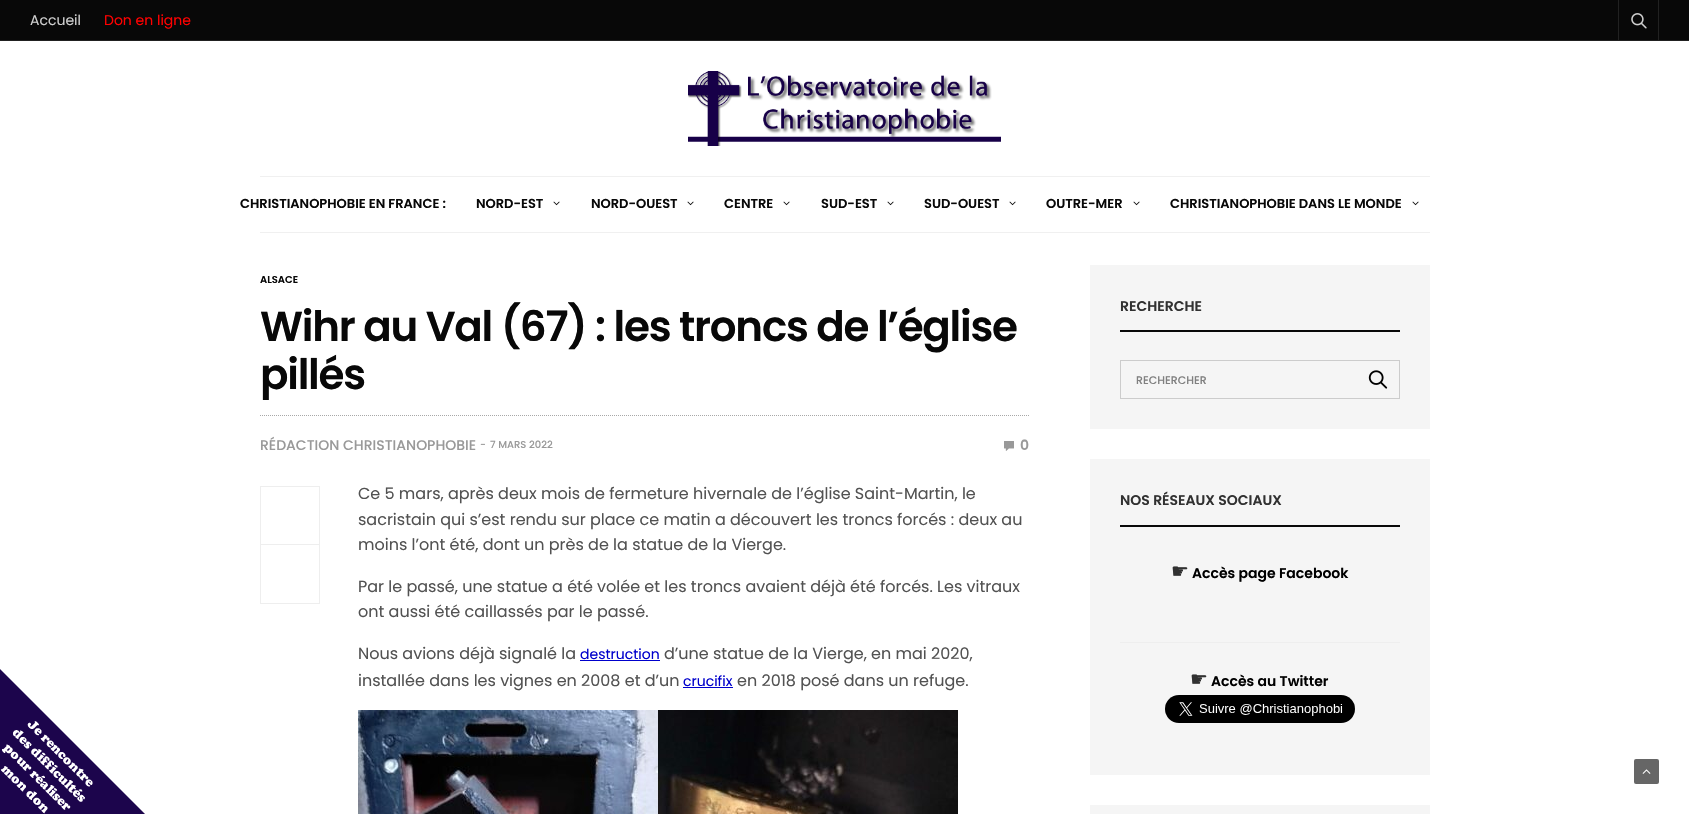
#include "include/core/SkBlurTypes.h"
#include "include/core/SkCanvas.h"
#include "include/core/SkData.h"
#include "include/core/SkFont.h"
#include "include/core/SkFontMgr.h"
#include "include/core/SkImage.h"
#include "include/core/SkMaskFilter.h"
#include "include/core/SkPaint.h"
#include "include/core/SkPathBuilder.h"
#include "include/core/SkTextBlob.h"
#include "include/effects/SkDashPathEffect.h"
#include "include/effects/SkGradientShader.h"
#include "include/utils/SkParsePath.h"

extern sk_sp<SkFontMgr> fontMgr;

static SkFont font(const char* family, int weight, float size, bool italic = false) {
    SkFontStyle style(weight, SkFontStyle::kNormal_Width,
        italic ? SkFontStyle::kItalic_Slant : SkFontStyle::kUpright_Slant);
    SkFont result(fontMgr->matchFamilyStyle(family, style), size);
    result.setSubpixel(true);
    return result;
}

static void drawLabel(SkCanvas* canvas, const char* s, float x, float y, const SkFont& font, SkColor color) {
    SkPaint ink(SkColor4f::FromColor(color));
    ink.setAntiAlias(true);
    canvas->drawString(s, x, y, font, ink);
}

static void drawTracked(SkCanvas* canvas, const char* s, float x, float y, const SkFont& font, const SkPaint& ink, float letter, float word) {
    std::vector<SkGlyphID> glyphs(font.countText(s, strlen(s), SkTextEncoding::kUTF8));
    std::vector<float> xs(glyphs.size());
    font.textToGlyphs(s, strlen(s), SkTextEncoding::kUTF8, glyphs);
    font.getXPos(glyphs, xs, x);
    float extra = 0;
    for (size_t i = 0; i < glyphs.size(); i++) {
        xs[i] += extra;
        extra += letter + word * (glyphs[i] == font.unicharToGlyph(' '));
    }
    canvas->drawTextBlob(SkTextBlob::MakeFromPosHGlyphs(glyphs, xs, y, font), 0, 0, ink);
}

static void fillRect(SkCanvas* canvas, float x, float y, float w, float h, SkColor color) {
    SkPaint ink(SkColor4f::FromColor(color));
    ink.setAntiAlias(true);
    canvas->drawRect(SkRect::MakeXYWH(x, y, w, h), ink);
}

static void fillRRect(SkCanvas* canvas, float x, float y, float w, float h, float radius, SkColor color) {
    SkPaint ink(SkColor4f::FromColor(color));
    ink.setAntiAlias(true);
    canvas->drawRoundRect(SkRect::MakeXYWH(x, y, w, h), radius, radius, ink);
}

static void drawPhoto(SkCanvas* canvas, const char* path, float x, float y, float w, float h) {
    auto image = SkImages::DeferredFromEncodedData(SkData::MakeFromFileName(path));
    canvas->drawImageRect(image, SkRect::MakeXYWH(x, y, w, h), SkSamplingOptions());
}

static SkPath parsePath(const char* data, bool evenOdd = false) {
    SkPath result = *SkParsePath::FromSVGString(data);
    if (evenOdd) result.setFillType(SkPathFillType::kEvenOdd);
    return result;
}

void draw(SkCanvas* canvas) {
    SkPaint paint;
    paint.setAntiAlias(true);
    canvas->clear(0xFFFFFFFF);
    fillRect(canvas, 0, 0, 1689, 40, 0xFF080808);
    fillRect(canvas, 0, 40, 1689, 1, 0xFF212121);
    SkFont font1 = font("Poppins", 400, 14);
    drawLabel(canvas, "Accueil", 30, 25, font1, 0xFFCECECE);
    drawLabel(canvas, "Don en ligne", 104, 25, font1, 0xFFFF0000);
    fillRect(canvas, 1658, 0, 1, 40, 0xFF212121);
    fillRect(canvas, 1618, 0, 1, 40, 0xFF212121);
    drawPhoto(canvas, "assets/img1.png", 1631, 13, 16, 16);
    drawPhoto(canvas, "assets/img2.png", 688, 71, 313, 75);
    fillRect(canvas, 260, 176, 1170, 1, 0xFFF0F0F0);
    fillRect(canvas, 260, 232, 1170, 1, 0xFFF0F0F0);
    SkFont font2 = font("Poppins", 600, 13);
    drawLabel(canvas, "CHRISTIANOPHOBIE EN FRANCE :", 240, 208, font2, 0xFF080808);
    drawLabel(canvas, "NORD-EST", 476, 208, font2, 0xFF080808);
    drawPhoto(canvas, "assets/img3.png", 553, 201, 7, 5);
    drawLabel(canvas, "NORD-OUEST", 591, 208, font2, 0xFF080808);
    drawPhoto(canvas, "assets/img3.png", 687, 201, 7, 5);
    drawLabel(canvas, "CENTRE", 724, 208, font2, 0xFF080808);
    drawPhoto(canvas, "assets/img3.png", 783, 201, 7, 5);
    drawLabel(canvas, "SUD-EST", 821, 208, font2, 0xFF080808);
    drawPhoto(canvas, "assets/img3.png", 887, 201, 7, 5);
    drawLabel(canvas, "SUD-OUEST", 924, 208, font2, 0xFF080808);
    drawPhoto(canvas, "assets/img3.png", 1009, 201, 7, 5);
    drawLabel(canvas, "OUTRE-MER", 1046, 208, font2, 0xFF080808);
    drawPhoto(canvas, "assets/img3.png", 1133, 201, 7, 5);
    drawLabel(canvas, "CHRISTIANOPHOBIE DANS LE MONDE", 1170, 208, font2, 0xFF080808);
    drawPhoto(canvas, "assets/img3.png", 1412, 201, 7, 5);
    SkFont font3 = font("Poppins", 600, 10);
    drawLabel(canvas, "ALSACE", 260, 283, font3, 0xFF080808);
    paint.setStroke(true);
    paint.setStrokeWidth(1);
    paint.setColor(0xFFA8A8A8);
    paint.setPathEffect(SkDashPathEffect::Make({{1, 1}}, 0));
    canvas->drawPath(parsePath("M260 415.5H1030"), paint);
    paint.setPathEffect(nullptr);
    SkFont font4 = font("Poppins", 600, 42);
    paint.setStroke(false);
    paint.setColor(0xFF080808);
    drawTracked(canvas, "Wihr au Val (67) : les troncs de l’église", 260, 341, font4, paint, -1.25f, 0);
    drawTracked(canvas, "pillés", 260, 389, font4, paint, -1.25f, 0);
    SkFont font5 = font("Poppins", 500, 14);
    drawLabel(canvas, "RÉDACTION CHRISTIANOPHOBIE", 260, 450, font5, 0xFF999999);
    SkFont font6 = font("Poppins", 500, 10);
    drawLabel(canvas, "-", 480, 448, font6, 0xFF999999);
    drawLabel(canvas, "7 MARS 2022", 490, 448, font6, 0xFF999999);
    drawPhoto(canvas, "assets/img4.png", 1004, 441, 10, 10);
    SkFont font7 = font("Poppins", 600, 14);
    drawLabel(canvas, "0", 1020, 450, font7, 0xFF999999);
    paint.setStroke(true);
    paint.setColor(0xFFEEEEEE);
    canvas->drawRect(SkRect::MakeXYWH(260.5f, 486.5f, 59, 58), paint);
    fillRect(canvas, 319, 545, 1, 59, 0xFFEEEEEE);
    fillRect(canvas, 260, 603, 60, 1, 0xFFEEEEEE);
    fillRect(canvas, 260, 545, 1, 59, 0xFFEEEEEE);
    SkFont font8 = font("Poppins", 400, 16);
    drawLabel(canvas, "Ce 5 mars, après deux mois de fermeture hivernale de l’église Saint-Martin, le", 358, 499, font8, 0xFF525252);
    drawLabel(canvas, "sacristain qui s’est rendu sur place ce matin a découvert les troncs forcés : deux au", 358, 525, font8, 0xFF525252);
    drawLabel(canvas, "moins l’ont été, dont un près de la statue de la Vierge.", 358, 550, font8, 0xFF525252);
    drawLabel(canvas, "Par le passé, une statue a été volée et les troncs avaient déjà été forcés. Les vitraux", 358, 592, font8, 0xFF525252);
    drawLabel(canvas, "ont aussi été caillassés par le passé.", 358, 617, font8, 0xFF525252);
    drawLabel(canvas, "Nous avions déjà signalé la", 358, 659, font8, 0xFF525252);
    drawLabel(canvas, "destruction", 580, 659, font1, 0xFF0000CC);
    fillRect(canvas, 580, 660, 80, 1, 0xFF0000CC);
    drawLabel(canvas, "d’une statue de la Vierge, en mai 2020,", 664, 659, font8, 0xFF525252);
    drawLabel(canvas, "installée dans les vignes en 2008 et d’un", 358, 686, font8, 0xFF525252);
    drawLabel(canvas, "crucifix", 683, 686, font1, 0xFF0000CC);
    fillRect(canvas, 683, 687, 50, 1, 0xFF0000CC);
    drawLabel(canvas, "en 2018 posé dans un refuge.", 737, 686, font8, 0xFF525252);
    drawPhoto(canvas, "assets/img5.png", 358, 710, 300, 104);
    drawPhoto(canvas, "assets/img6.png", 658, 710, 300, 104);
    fillRect(canvas, 1090, 265, 340, 164, 0xFFF5F5F5);
    fillRect(canvas, 1120, 330, 280, 2, 0xFF080808);
    drawLabel(canvas, "RECHERCHE", 1120, 311, font7, 0xFF313131);
    paint.setColor(0xFFCCCCCC);
    canvas->drawRect(SkRect::MakeXYWH(1120.5f, 360.5f, 279, 38), paint);
    SkFont font9 = font("Poppins", 500, 11);
    drawLabel(canvas, "RECHERCHER", 1136, 384, font9, 0xFF808080);
    drawPhoto(canvas, "assets/img7.png", 1368, 370, 20, 19);
    fillRect(canvas, 1090, 459, 340, 316, 0xFFF5F5F5);
    fillRect(canvas, 1120, 525, 280, 2, 0xFF080808);
    drawLabel(canvas, "NOS RÉSEAUX SOCIAUX", 1120, 505, font7, 0xFF313131);
    SkFont font10 = font("DejaVu Sans", 400, 20);
    drawLabel(canvas, "☛", 1171, 578, font10, 0xFF313131);
    drawLabel(canvas, "Accès page Facebook", 1192, 578, font7, 0xFF000000);
    fillRect(canvas, 1120, 642, 280, 1, 0xFFEEEEEE);
    drawLabel(canvas, "☛", 1190, 686, font10, 0xFF313131);
    drawLabel(canvas, "Accès au Twitter", 1211, 686, font7, 0xFF000000);
    drawPhoto(canvas, "assets/img8.png", 1165, 695, 190, 28);
    fillRect(canvas, 1090, 805, 340, 9, 0xFFF5F5F5);
    paint.setStroke(false);
    paint.setColor(0xFF1C054C);
    canvas->drawPath(parsePath("M145 814H0V669Z"), paint);
    drawPhoto(canvas, "assets/img9.png", 0, 721, 93, 93);
    fillRRect(canvas, 1634, 759, 25, 25, 2, 0xFF666666);
    drawPhoto(canvas, "assets/img10.png", 1642, 769, 9, 5);
}
